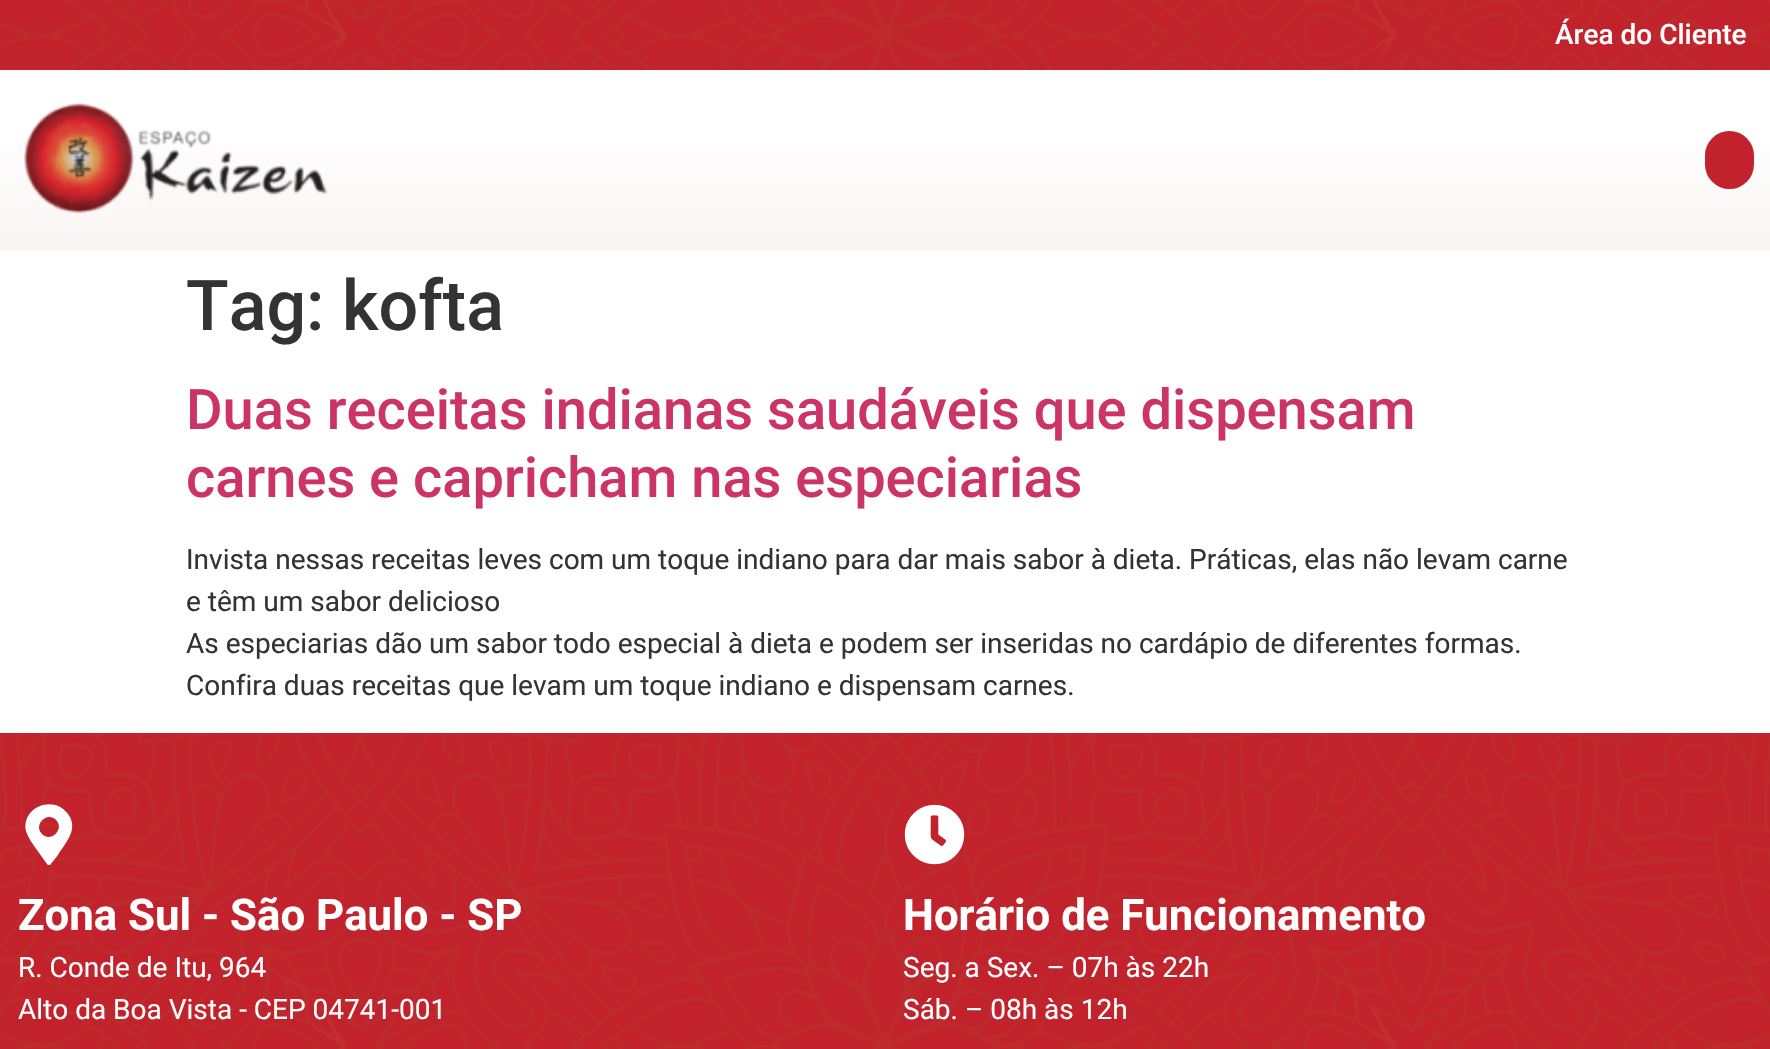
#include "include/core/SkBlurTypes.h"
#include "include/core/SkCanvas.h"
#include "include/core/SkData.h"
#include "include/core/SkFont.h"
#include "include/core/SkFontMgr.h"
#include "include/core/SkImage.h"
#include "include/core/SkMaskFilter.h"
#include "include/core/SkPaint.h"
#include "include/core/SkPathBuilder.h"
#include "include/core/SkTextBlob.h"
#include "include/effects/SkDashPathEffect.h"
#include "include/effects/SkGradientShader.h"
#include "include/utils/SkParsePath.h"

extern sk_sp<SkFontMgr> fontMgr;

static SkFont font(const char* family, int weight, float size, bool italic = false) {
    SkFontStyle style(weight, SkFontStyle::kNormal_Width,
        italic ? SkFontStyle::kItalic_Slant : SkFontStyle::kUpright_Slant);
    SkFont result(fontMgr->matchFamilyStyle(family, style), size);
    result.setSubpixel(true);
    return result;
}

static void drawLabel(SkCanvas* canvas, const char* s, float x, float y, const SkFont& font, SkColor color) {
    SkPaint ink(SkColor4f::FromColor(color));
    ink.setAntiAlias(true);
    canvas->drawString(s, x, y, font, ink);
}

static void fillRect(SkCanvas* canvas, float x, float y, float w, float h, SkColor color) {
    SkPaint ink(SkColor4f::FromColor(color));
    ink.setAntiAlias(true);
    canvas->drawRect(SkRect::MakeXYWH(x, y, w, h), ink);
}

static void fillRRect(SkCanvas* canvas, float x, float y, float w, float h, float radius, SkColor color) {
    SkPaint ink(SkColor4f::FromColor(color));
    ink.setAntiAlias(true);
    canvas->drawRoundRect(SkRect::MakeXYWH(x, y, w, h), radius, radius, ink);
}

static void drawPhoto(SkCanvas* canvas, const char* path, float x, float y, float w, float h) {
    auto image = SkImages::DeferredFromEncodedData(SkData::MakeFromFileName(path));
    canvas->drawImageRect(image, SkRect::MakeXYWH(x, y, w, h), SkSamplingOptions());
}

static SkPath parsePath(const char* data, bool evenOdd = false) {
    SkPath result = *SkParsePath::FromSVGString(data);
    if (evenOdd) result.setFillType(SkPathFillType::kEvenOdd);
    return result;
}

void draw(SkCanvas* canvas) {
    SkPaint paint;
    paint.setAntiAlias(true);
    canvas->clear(0xFFFFFFFF);
    fillRect(canvas, 0, 0, 1770, 70, 0xFFC1222B);
    drawPhoto(canvas, "assets/img1.png", 0, 0, 1770, 70);
    SkFont font1 = font("Roboto", 500, 28);
    drawLabel(canvas, "Área do Cliente", 1555, 44, font1, 0xFFFFFFFF);
    {
        const SkColor colors[] = {0xFFFFFFFF, 0xFFFAF5F5};
        const float stops[] = {0.21f, 1};
        const SkPoint ends[] = {{886, 70}, {886, 250}};
        paint.setShader(SkGradientShader::MakeLinear(ends, colors, stops, 2, SkTileMode::kClamp));
        paint.setAlpha(255);
    }
    canvas->drawRect(SkRect::MakeXYWH(0, 143, 1770, 107), paint);
    drawPhoto(canvas, "assets/img2.png", 24, 102, 304, 112);
    fillRRect(canvas, 1705, 131, 49, 58, 24.5f, 0xFFC1222B);
    SkFont font2 = font("Roboto", 500, 70);
    drawLabel(canvas, "Tag: kofta", 186, 330, font2, 0xFF333333);
    SkFont font3 = font("Roboto", 500, 56);
    drawLabel(canvas, "Duas receitas indianas saudáveis que dispensam", 186, 429, font3, 0xFFCC3366);
    drawLabel(canvas, "carnes e capricham nas especiarias", 186, 497, font3, 0xFFCC3366);
    SkFont font4 = font("Roboto", 400, 28);
    drawLabel(canvas, "Invista nessas receitas leves com um toque indiano para dar mais sabor à dieta. Práticas, elas não levam carne", 186, 569, font4, 0xFF333333);
    drawLabel(canvas, "e têm um sabor delicioso", 186, 611, font4, 0xFF333333);
    drawLabel(canvas, "As especiarias dão um sabor todo especial à dieta e podem ser inseridas no cardápio de diferentes formas.", 186, 653, font4, 0xFF333333);
    drawLabel(canvas, "Confira duas receitas que levam um toque indiano e dispensam carnes.", 186, 695, font4, 0xFF333333);
    fillRect(canvas, 0, 733, 1770, 316, 0xFFC1222B);
    drawPhoto(canvas, "assets/img3.png", 0, 733, 1770, 316);
    paint.setShader(nullptr);
    paint.setColor(0xFFFFFFFF);
    canvas->drawPath(parsePath("M47 864L37 850C33 844 28 838 26 831C21 807 54 794 68 814C79 829 66 842 58 855L50 865C49 865 47 865 47 864ZM42 834C51 843 65 829 56 820C47 811 33 825 42 834Z"), paint);
    SkFont font5 = font("Roboto", 700, 43.75f);
    drawLabel(canvas, "Zona Sul - São Paulo - SP", 18, 930, font5, 0xFFFFFFFF);
    drawLabel(canvas, "R. Conde de Itu, 964", 18, 977, font4, 0xFFFFFFFF);
    drawLabel(canvas, "Alto da Boa Vista - CEP 04741-001", 18, 1019, font4, 0xFFFFFFFF);
    drawPhoto(canvas, "assets/img4.png", 904, 804, 61, 61);
    drawLabel(canvas, "Horário de Funcionamento", 903, 930, font5, 0xFFFFFFFF);
    drawLabel(canvas, "Seg. a Sex. – 07h às 22h", 903, 977, font4, 0xFFFFFFFF);
    drawLabel(canvas, "Sáb. – 08h às 12h", 903, 1019, font4, 0xFFFFFFFF);
}
